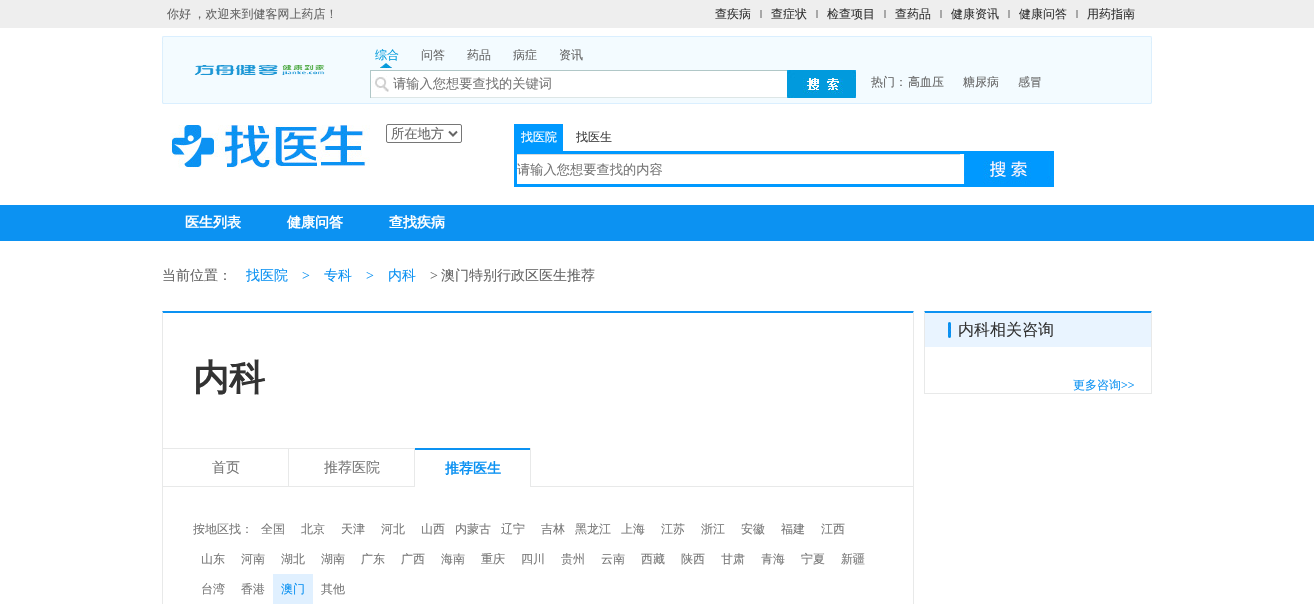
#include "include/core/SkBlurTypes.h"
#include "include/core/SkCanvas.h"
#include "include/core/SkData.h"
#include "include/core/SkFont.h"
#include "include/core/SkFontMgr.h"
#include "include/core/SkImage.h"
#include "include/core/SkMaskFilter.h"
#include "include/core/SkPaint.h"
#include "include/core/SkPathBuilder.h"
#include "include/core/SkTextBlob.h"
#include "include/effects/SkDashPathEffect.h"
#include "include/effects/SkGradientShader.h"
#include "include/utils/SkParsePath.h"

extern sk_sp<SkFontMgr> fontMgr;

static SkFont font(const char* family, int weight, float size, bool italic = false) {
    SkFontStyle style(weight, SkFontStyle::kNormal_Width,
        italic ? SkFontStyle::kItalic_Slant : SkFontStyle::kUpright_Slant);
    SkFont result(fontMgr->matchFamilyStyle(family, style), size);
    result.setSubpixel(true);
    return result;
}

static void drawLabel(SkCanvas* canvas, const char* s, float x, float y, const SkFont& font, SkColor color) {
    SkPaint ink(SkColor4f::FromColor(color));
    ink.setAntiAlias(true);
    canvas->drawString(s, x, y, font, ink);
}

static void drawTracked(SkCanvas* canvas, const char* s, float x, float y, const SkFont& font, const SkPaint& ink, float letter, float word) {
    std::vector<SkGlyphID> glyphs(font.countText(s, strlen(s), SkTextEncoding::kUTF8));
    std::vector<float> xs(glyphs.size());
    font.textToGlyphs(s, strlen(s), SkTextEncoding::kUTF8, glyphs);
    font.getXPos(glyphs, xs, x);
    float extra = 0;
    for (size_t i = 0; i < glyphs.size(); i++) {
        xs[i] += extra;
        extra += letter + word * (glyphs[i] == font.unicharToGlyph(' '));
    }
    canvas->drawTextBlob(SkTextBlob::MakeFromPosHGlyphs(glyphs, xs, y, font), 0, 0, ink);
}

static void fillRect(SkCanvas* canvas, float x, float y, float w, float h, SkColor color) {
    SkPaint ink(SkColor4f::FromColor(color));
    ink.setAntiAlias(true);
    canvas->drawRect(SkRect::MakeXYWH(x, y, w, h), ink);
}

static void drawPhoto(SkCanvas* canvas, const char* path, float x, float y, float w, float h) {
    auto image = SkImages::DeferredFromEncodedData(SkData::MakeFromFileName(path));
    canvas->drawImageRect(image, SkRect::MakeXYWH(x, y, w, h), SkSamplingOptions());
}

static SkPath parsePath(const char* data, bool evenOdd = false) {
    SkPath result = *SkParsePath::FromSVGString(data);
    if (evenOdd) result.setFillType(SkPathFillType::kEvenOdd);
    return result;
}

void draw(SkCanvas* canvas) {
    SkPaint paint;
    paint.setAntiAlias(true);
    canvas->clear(0xFFFFFFFF);
    fillRect(canvas, 0, 0, 1314, 28, 0xFFEEEEEE);
    SkFont font1 = font("WenQuanYi Zen Hei", 500, 12);
    paint.setColor(0xFF666666);
    drawTracked(canvas, "你好 ，欢迎来到健客网上药店！", 167, 18, font1, paint, 0, -1);
    drawLabel(canvas, "查疾病", 715, 18, font1, 0xFF333333);
    fillRect(canvas, 760, 10, 2, 8, 0xFFA8A8A8);
    drawLabel(canvas, "查症状", 771, 18, font1, 0xFF333333);
    fillRect(canvas, 816, 10, 2, 8, 0xFFA8A8A8);
    drawLabel(canvas, "检查项目", 827, 18, font1, 0xFF333333);
    fillRect(canvas, 884, 10, 2, 8, 0xFFA8A8A8);
    drawLabel(canvas, "查药品", 895, 18, font1, 0xFF333333);
    fillRect(canvas, 940, 10, 2, 8, 0xFFA8A8A8);
    drawLabel(canvas, "健康资讯", 951, 18, font1, 0xFF333333);
    fillRect(canvas, 1008, 10, 2, 8, 0xFFA8A8A8);
    drawLabel(canvas, "健康问答", 1019, 18, font1, 0xFF333333);
    fillRect(canvas, 1076, 10, 2, 8, 0xFFA8A8A8);
    drawLabel(canvas, "用药指南", 1087, 18, font1, 0xFF333333);
    fillRect(canvas, 164, 37, 986, 66, 0xFFF3FBFF);
    fillRect(canvas, 162, 36, 990, 1, 0xFFDAEFFF);
    fillRect(canvas, 162, 103, 990, 1, 0xFFDAEFFF);
    drawPhoto(canvas, "assets/img1.png", 162, 36, 2, 68);
    drawPhoto(canvas, "assets/img2.png", 194, 65, 131, 10);
    drawLabel(canvas, "综合", 375, 59, font1, 0xFF009BDC);
    drawPhoto(canvas, "assets/img3.png", 380, 63, 12, 5);
    drawLabel(canvas, "问答", 421, 59, font1, 0xFF666666);
    drawLabel(canvas, "药品", 467, 59, font1, 0xFF666666);
    drawLabel(canvas, "病症", 513, 59, font1, 0xFF666666);
    drawLabel(canvas, "资讯", 559, 59, font1, 0xFF666666);
    fillRect(canvas, 371, 71, 416, 26, 0xFFFFFFFF);
    fillRect(canvas, 370, 70, 417, 1, 0xFFB0C7C7);
    fillRect(canvas, 370, 97, 417, 1, 0xFFDDE6E6);
    fillRect(canvas, 370, 70, 1, 28, 0xFFB0C7C7);
    drawPhoto(canvas, "assets/img4.png", 372, 76, 17, 16);
    SkFont font2 = font("WenQuanYi Zen Hei", 500, 13.25f);
    drawLabel(canvas, "请输入您想要查找的关键词", 393, 88, font2, 0xFF777777);
    drawPhoto(canvas, "assets/img5.png", 787, 70, 69, 28);
    drawPhoto(canvas, "assets/img6.png", 1150, 36, 2, 68);
    drawLabel(canvas, "热门：", 871, 86, font1, 0xFF666666);
    drawLabel(canvas, "高血压", 908, 86, font1, 0xFF666666);
    drawLabel(canvas, "糖尿病", 963, 86, font1, 0xFF666666);
    drawLabel(canvas, "感冒", 1018, 86, font1, 0xFF666666);
    drawPhoto(canvas, "assets/img7.png", 170, 125, 200, 43);
    paint.setStroke(true);
    paint.setStrokeWidth(1);
    paint.setColor(0xFF767676);
    canvas->drawRoundRect(SkRect::MakeXYWH(386.5f, 124.5f, 75, 18), 1.5f, 1.5f, paint);
    paint.setStrokeWidth(2);
    paint.setColor(0xFF666666);
    canvas->drawPath(parsePath("M449 131.5L453 135.5L457 131.5"), paint);
    drawLabel(canvas, "所在地方", 391, 138, font2, 0xFF666666);
    fillRect(canvas, 514, 124, 49, 27, 0xFF0099FF);
    drawLabel(canvas, "找医院", 521, 141, font1, 0xFFFFFFFF);
    drawLabel(canvas, "找医生", 576, 141, font1, 0xFF3C3C3C);
    fillRect(canvas, 514, 151, 540, 3, 0xFF0099FF);
    fillRect(canvas, 514, 184, 540, 3, 0xFF0099FF);
    fillRect(canvas, 514, 151, 3, 36, 0xFF0099FF);
    fillRect(canvas, 517, 154, 443, 1, 0xFFD9D9D9);
    drawLabel(canvas, "请输入您想要查找的内容", 517, 174, font2, 0xFF777777);
    drawPhoto(canvas, "assets/img8.png", 964, 154, 90, 30);
    fillRect(canvas, 0, 205, 1314, 36, 0xFF0C92F2);
    SkFont font3 = font("WenQuanYi Zen Hei", 700, 14);
    drawLabel(canvas, "医生列表", 185, 227, font3, 0xFFFFFFFF);
    drawLabel(canvas, "健康问答", 287, 227, font3, 0xFFFFFFFF);
    drawLabel(canvas, "查找疾病", 389, 227, font3, 0xFFFFFFFF);
    SkFont font4 = font("WenQuanYi Zen Hei", 500, 14);
    drawLabel(canvas, "当前位置：", 162, 280, font4, 0xFF666666);
    drawLabel(canvas, "找医院", 246, 280, font4, 0xFF0C92F2);
    SkFont font5 = font("Liberation Serif", 400, 14);
    drawLabel(canvas, ">", 302, 280, font5, 0xFF0C92F2);
    drawLabel(canvas, "专科", 324, 280, font4, 0xFF0C92F2);
    drawLabel(canvas, ">", 366, 280, font5, 0xFF0C92F2);
    drawLabel(canvas, "内科", 388, 280, font4, 0xFF0C92F2);
    drawLabel(canvas, ">", 430, 280, font5, 0xFF666666);
    drawLabel(canvas, "澳门特别行政区医生推荐", 441, 280, font4, 0xFF666666);
    paint.setStroke(false);
    paint.setColor(0xFF0C92F2);
    canvas->drawPath(parsePath("M162 311H914L913 313H163Z"), paint);
    paint.setColor(0xFFE8E9E9);
    canvas->drawPath(parsePath("M914 311V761H913V313Z"), paint);
    canvas->drawPath(parsePath("M162 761V311L163 313V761Z"), paint);
    SkFont font6 = font("WenQuanYi Zen Hei", 700, 36);
    drawLabel(canvas, "内科", 193, 390, font6, 0xFF333333);
    fillRect(canvas, 163, 448, 252, 1, 0xFFE8E9E9);
    fillRect(canvas, 288, 448, 1, 39, 0xFFE8E9E9);
    fillRect(canvas, 163, 486, 126, 1, 0xFFE8E9E9);
    drawLabel(canvas, "首页", 212, 472, font4, 0xFF777777);
    fillRect(canvas, 414, 448, 1, 39, 0xFFE8E9E9);
    fillRect(canvas, 289, 486, 126, 1, 0xFFE8E9E9);
    drawLabel(canvas, "推荐医院", 324, 472, font4, 0xFF777777);
    fillRect(canvas, 415, 448, 115, 2, 0xFF0C92F2);
    drawLabel(canvas, "推荐医生", 445, 473, font3, 0xFF0C92F2);
    fillRect(canvas, 530, 486, 383, 1, 0xFFE8E9E9);
    fillRect(canvas, 530, 448, 1, 39, 0xFFE8E9E9);
    drawLabel(canvas, "按地区找：", 193, 533, font1, 0xFF777777);
    drawLabel(canvas, "全国", 261, 533, font1, 0xFF777777);
    drawLabel(canvas, "北京", 301, 533, font1, 0xFF777777);
    drawLabel(canvas, "天津", 341, 533, font1, 0xFF777777);
    drawLabel(canvas, "河北", 381, 533, font1, 0xFF777777);
    drawLabel(canvas, "山西", 421, 533, font1, 0xFF777777);
    drawLabel(canvas, "内蒙古", 455, 533, font1, 0xFF777777);
    drawLabel(canvas, "辽宁", 501, 533, font1, 0xFF777777);
    drawLabel(canvas, "吉林", 541, 533, font1, 0xFF777777);
    drawLabel(canvas, "黑龙江", 575, 533, font1, 0xFF777777);
    drawLabel(canvas, "上海", 621, 533, font1, 0xFF777777);
    drawLabel(canvas, "江苏", 661, 533, font1, 0xFF777777);
    drawLabel(canvas, "浙江", 701, 533, font1, 0xFF777777);
    drawLabel(canvas, "安徽", 741, 533, font1, 0xFF777777);
    drawLabel(canvas, "福建", 781, 533, font1, 0xFF777777);
    drawLabel(canvas, "江西", 821, 533, font1, 0xFF777777);
    drawLabel(canvas, "山东", 201, 563, font1, 0xFF777777);
    drawLabel(canvas, "河南", 241, 563, font1, 0xFF777777);
    drawLabel(canvas, "湖北", 281, 563, font1, 0xFF777777);
    drawLabel(canvas, "湖南", 321, 563, font1, 0xFF777777);
    drawLabel(canvas, "广东", 361, 563, font1, 0xFF777777);
    drawLabel(canvas, "广西", 401, 563, font1, 0xFF777777);
    drawLabel(canvas, "海南", 441, 563, font1, 0xFF777777);
    drawLabel(canvas, "重庆", 481, 563, font1, 0xFF777777);
    drawLabel(canvas, "四川", 521, 563, font1, 0xFF777777);
    drawLabel(canvas, "贵州", 561, 563, font1, 0xFF777777);
    drawLabel(canvas, "云南", 601, 563, font1, 0xFF777777);
    drawLabel(canvas, "西藏", 641, 563, font1, 0xFF777777);
    drawLabel(canvas, "陕西", 681, 563, font1, 0xFF777777);
    drawLabel(canvas, "甘肃", 721, 563, font1, 0xFF777777);
    drawLabel(canvas, "青海", 761, 563, font1, 0xFF777777);
    drawLabel(canvas, "宁夏", 801, 563, font1, 0xFF777777);
    drawLabel(canvas, "新疆", 841, 563, font1, 0xFF777777);
    drawLabel(canvas, "台湾", 201, 593, font1, 0xFF777777);
    drawLabel(canvas, "香港", 241, 593, font1, 0xFF777777);
    fillRect(canvas, 273, 574, 40, 30, 0xFFE0F0FF);
    drawLabel(canvas, "澳门", 281, 593, font1, 0xFF0C92F2);
    drawLabel(canvas, "其他", 321, 593, font1, 0xFF777777);
    paint.setColor(0xFF0C92F2);
    canvas->drawPath(parsePath("M924 311H1152L1151 313H925Z"), paint);
    paint.setColor(0xFFE8E9E9);
    canvas->drawPath(parsePath("M1152 311V394H1151V313Z"), paint);
    canvas->drawPath(parsePath("M924 394V311L925 313V394Z"), paint);
    fillRect(canvas, 925, 313, 226, 34, 0xFFE9F4FF);
    drawPhoto(canvas, "assets/img9.png", 948, 322, 3, 16);
    SkFont font7 = font("WenQuanYi Zen Hei", 500, 16);
    drawLabel(canvas, "内科相关咨询", 958, 335, font7, 0xFF333333);
    fillRect(canvas, 925, 393, 226, 1, 0xFFE8E9E9);
    drawLabel(canvas, "更多咨询", 1073, 389, font1, 0xFF0C92F2);
    SkFont font8 = font("Liberation Serif", 400, 12);
    drawLabel(canvas, ">>", 1121, 389, font8, 0xFF0C92F2);
}
